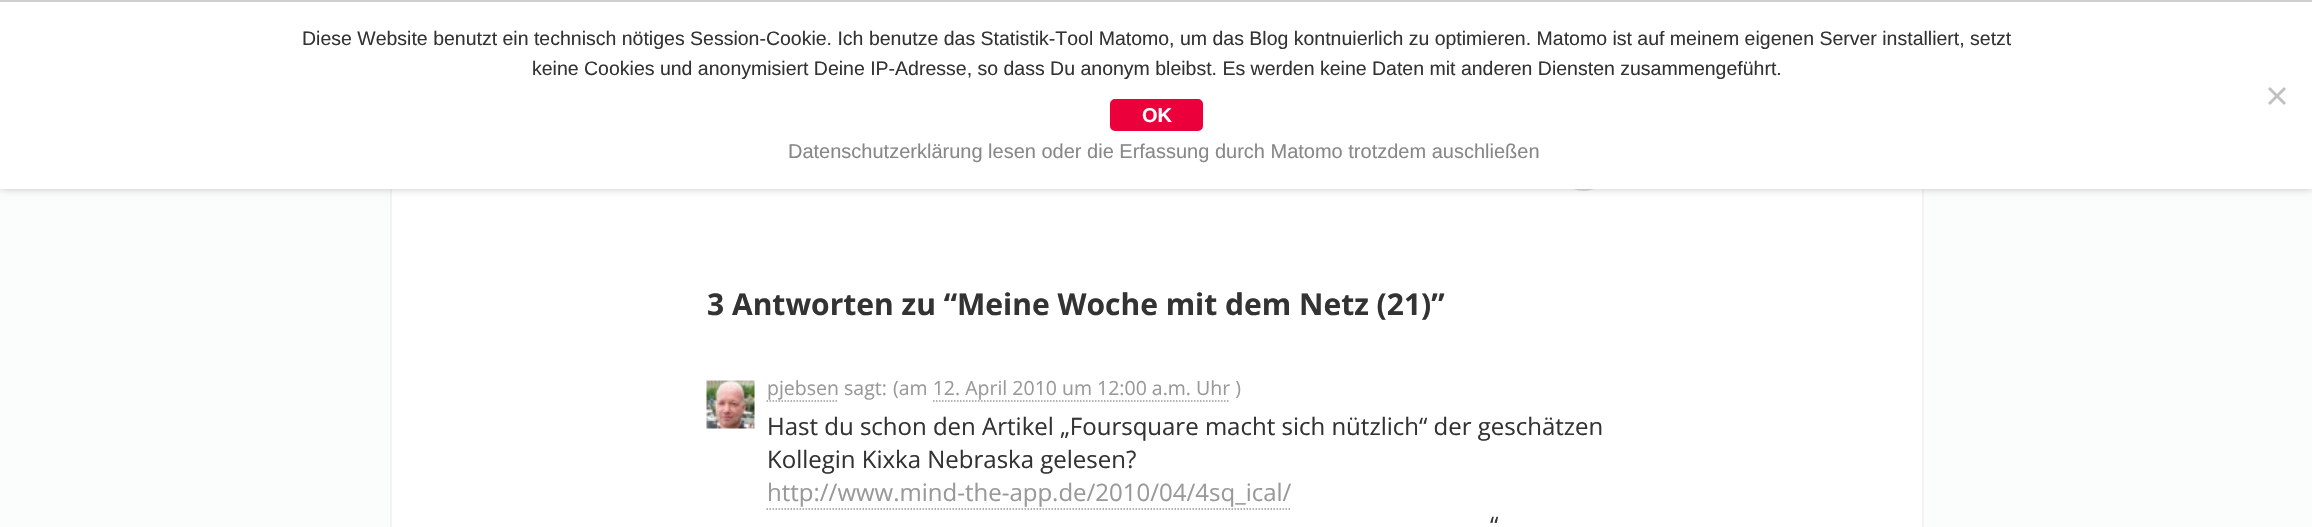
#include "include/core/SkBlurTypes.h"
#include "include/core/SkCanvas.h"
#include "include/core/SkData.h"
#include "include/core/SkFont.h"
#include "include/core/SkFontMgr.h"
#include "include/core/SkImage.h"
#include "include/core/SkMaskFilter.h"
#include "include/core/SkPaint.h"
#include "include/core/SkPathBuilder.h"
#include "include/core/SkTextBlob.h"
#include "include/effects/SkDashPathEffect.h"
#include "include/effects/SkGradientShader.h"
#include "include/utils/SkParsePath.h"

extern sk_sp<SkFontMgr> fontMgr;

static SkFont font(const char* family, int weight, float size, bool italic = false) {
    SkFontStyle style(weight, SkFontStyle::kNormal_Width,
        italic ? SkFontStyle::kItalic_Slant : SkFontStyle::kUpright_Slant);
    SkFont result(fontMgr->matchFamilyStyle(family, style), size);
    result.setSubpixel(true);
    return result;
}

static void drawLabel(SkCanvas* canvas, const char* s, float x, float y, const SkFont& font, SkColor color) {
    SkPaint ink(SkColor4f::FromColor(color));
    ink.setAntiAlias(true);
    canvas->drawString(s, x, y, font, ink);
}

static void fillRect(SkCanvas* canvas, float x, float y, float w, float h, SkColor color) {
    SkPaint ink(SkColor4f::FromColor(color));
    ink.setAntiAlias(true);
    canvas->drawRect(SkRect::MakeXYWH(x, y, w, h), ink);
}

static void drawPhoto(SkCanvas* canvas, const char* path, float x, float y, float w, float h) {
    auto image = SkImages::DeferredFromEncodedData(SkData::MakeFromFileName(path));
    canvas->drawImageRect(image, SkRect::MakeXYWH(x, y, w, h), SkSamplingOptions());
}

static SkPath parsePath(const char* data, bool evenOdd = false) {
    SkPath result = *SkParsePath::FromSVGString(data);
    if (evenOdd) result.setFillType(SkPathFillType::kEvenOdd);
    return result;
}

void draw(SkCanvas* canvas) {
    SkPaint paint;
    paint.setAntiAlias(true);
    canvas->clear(0xFFFBFCFC);
    fillRect(canvas, 392, 189, 1530, 338, 0xFFFFFFFF);
    fillRect(canvas, 1922, 189, 2, 338, 0xFFF3F3F3);
    fillRect(canvas, 390, 189, 2, 338, 0xFFF3F3F3);
    paint.setStroke(true);
    paint.setStrokeWidth(5);
    paint.setColor(0xFFDDDDDD);
    canvas->drawCircle(1583.5f, 164.5f, 24, paint);
    paint.setStroke(false);
    paint.setColor(0x66000000);
    paint.setMaskFilter(SkMaskFilter::MakeBlur(kNormal_SkBlurStyle, 5));
    canvas->drawRect(SkRect::MakeXYWH(0, -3, 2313, 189), paint);
    paint.setMaskFilter(nullptr);
    fillRect(canvas, 0, 2, 2312, 187, 0xFFFFFFFF);
    fillRect(canvas, 0, 0, 2312, 2, 0xFFCFCFCF);
    SkFont font1 = font("Liberation Sans", 400, 19.5f);
    drawLabel(canvas, "Diese Website benutzt ein technisch nötiges Session-Cookie. Ich benutze das Statistik-Tool Matomo, um das Blog kontnuierlich zu optimieren. Matomo ist auf meinem eigenen Server installiert, setzt", 302, 45, font1, 0xFF333333);
    drawLabel(canvas, "keine Cookies und anonymisiert Deine IP-Adresse, so dass Du anonym bleibst. Es werden keine Daten mit anderen Diensten zusammengeführt.", 532, 75, font1, 0xFF333333);
    paint.setColor(0xFFC0C0C0);
    canvas->drawPath(parsePath("M2284 87L2286 89L2270 105L2268 103Z"), paint);
    canvas->drawPath(parsePath("M2268 89L2270 87L2286 103L2284 105Z"), paint);
    paint.setColor(0xFFEC003C);
    canvas->drawRoundRect(SkRect::MakeXYWH(1111, 100, 91, 30), 4, 4, paint);
    paint.setStroke(true);
    paint.setStrokeWidth(2);
    canvas->drawRoundRect(SkRect::MakeXYWH(1111, 100, 91, 30), 4, 4, paint);
    SkFont font2 = font("Liberation Sans", 700, 20);
    drawLabel(canvas, "OK", 1142, 122, font2, 0xFFFFFFFF);
    SkFont font3 = font("Liberation Sans", 400, 20);
    drawLabel(canvas, "Datenschutzerklärung lesen oder die Erfassung durch Matomo trotzdem auschließen", 788, 158, font3, 0xFF888888);
    SkFont font4 = font("Open Sans", 700, 30);
    drawLabel(canvas, "3 Antworten zu “Meine Woche mit dem Netz (21)”", 707, 315, font4, 0xFF333333);
    drawPhoto(canvas, "assets/img1.png", 706, 380, 49, 49);
    SkFont font5 = font("Open Sans", 400, 19.5f);
    drawLabel(canvas, "pjebsen sagt:", 767, 395, font5, 0xFF999999);
    paint.setStrokeWidth(1.5f);
    paint.setColor(0xFF999999);
    paint.setPathEffect(SkDashPathEffect::Make({{1.5f, 1.5f}}, 0));
    canvas->drawPath(parsePath("M766.5 401H838.5"), paint);
    paint.setPathEffect(nullptr);
    drawLabel(canvas, "(am 12. April 2010 um 12:00 a.m. Uhr )", 893, 395, font5, 0xFF999999);
    paint.setPathEffect(SkDashPathEffect::Make({{1.5f, 1.5f}}, 0));
    canvas->drawPath(parsePath("M933 401H1230"), paint);
    paint.setPathEffect(nullptr);
    SkFont font6 = font("Open Sans", 400, 24);
    drawLabel(canvas, "Hast du schon den Artikel „Foursquare macht sich nützlich“ der geschätzen", 767, 435, font6, 0xFF333333);
    drawLabel(canvas, "Kollegin Kixka Nebraska gelesen?", 767, 468, font6, 0xFF333333);
    drawLabel(canvas, "http://www.mind-the-app.de/2010/04/4sq_ical/", 767, 501, font6, 0xFF999999);
    paint.setPathEffect(SkDashPathEffect::Make({{1.5f, 1.5f}}, 0));
    canvas->drawPath(parsePath("M766.5 509H1291.5"), paint);
    paint.setPathEffect(nullptr);
    drawLabel(canvas, "“", 1490, 534, font6, 0xFF333333);
}
